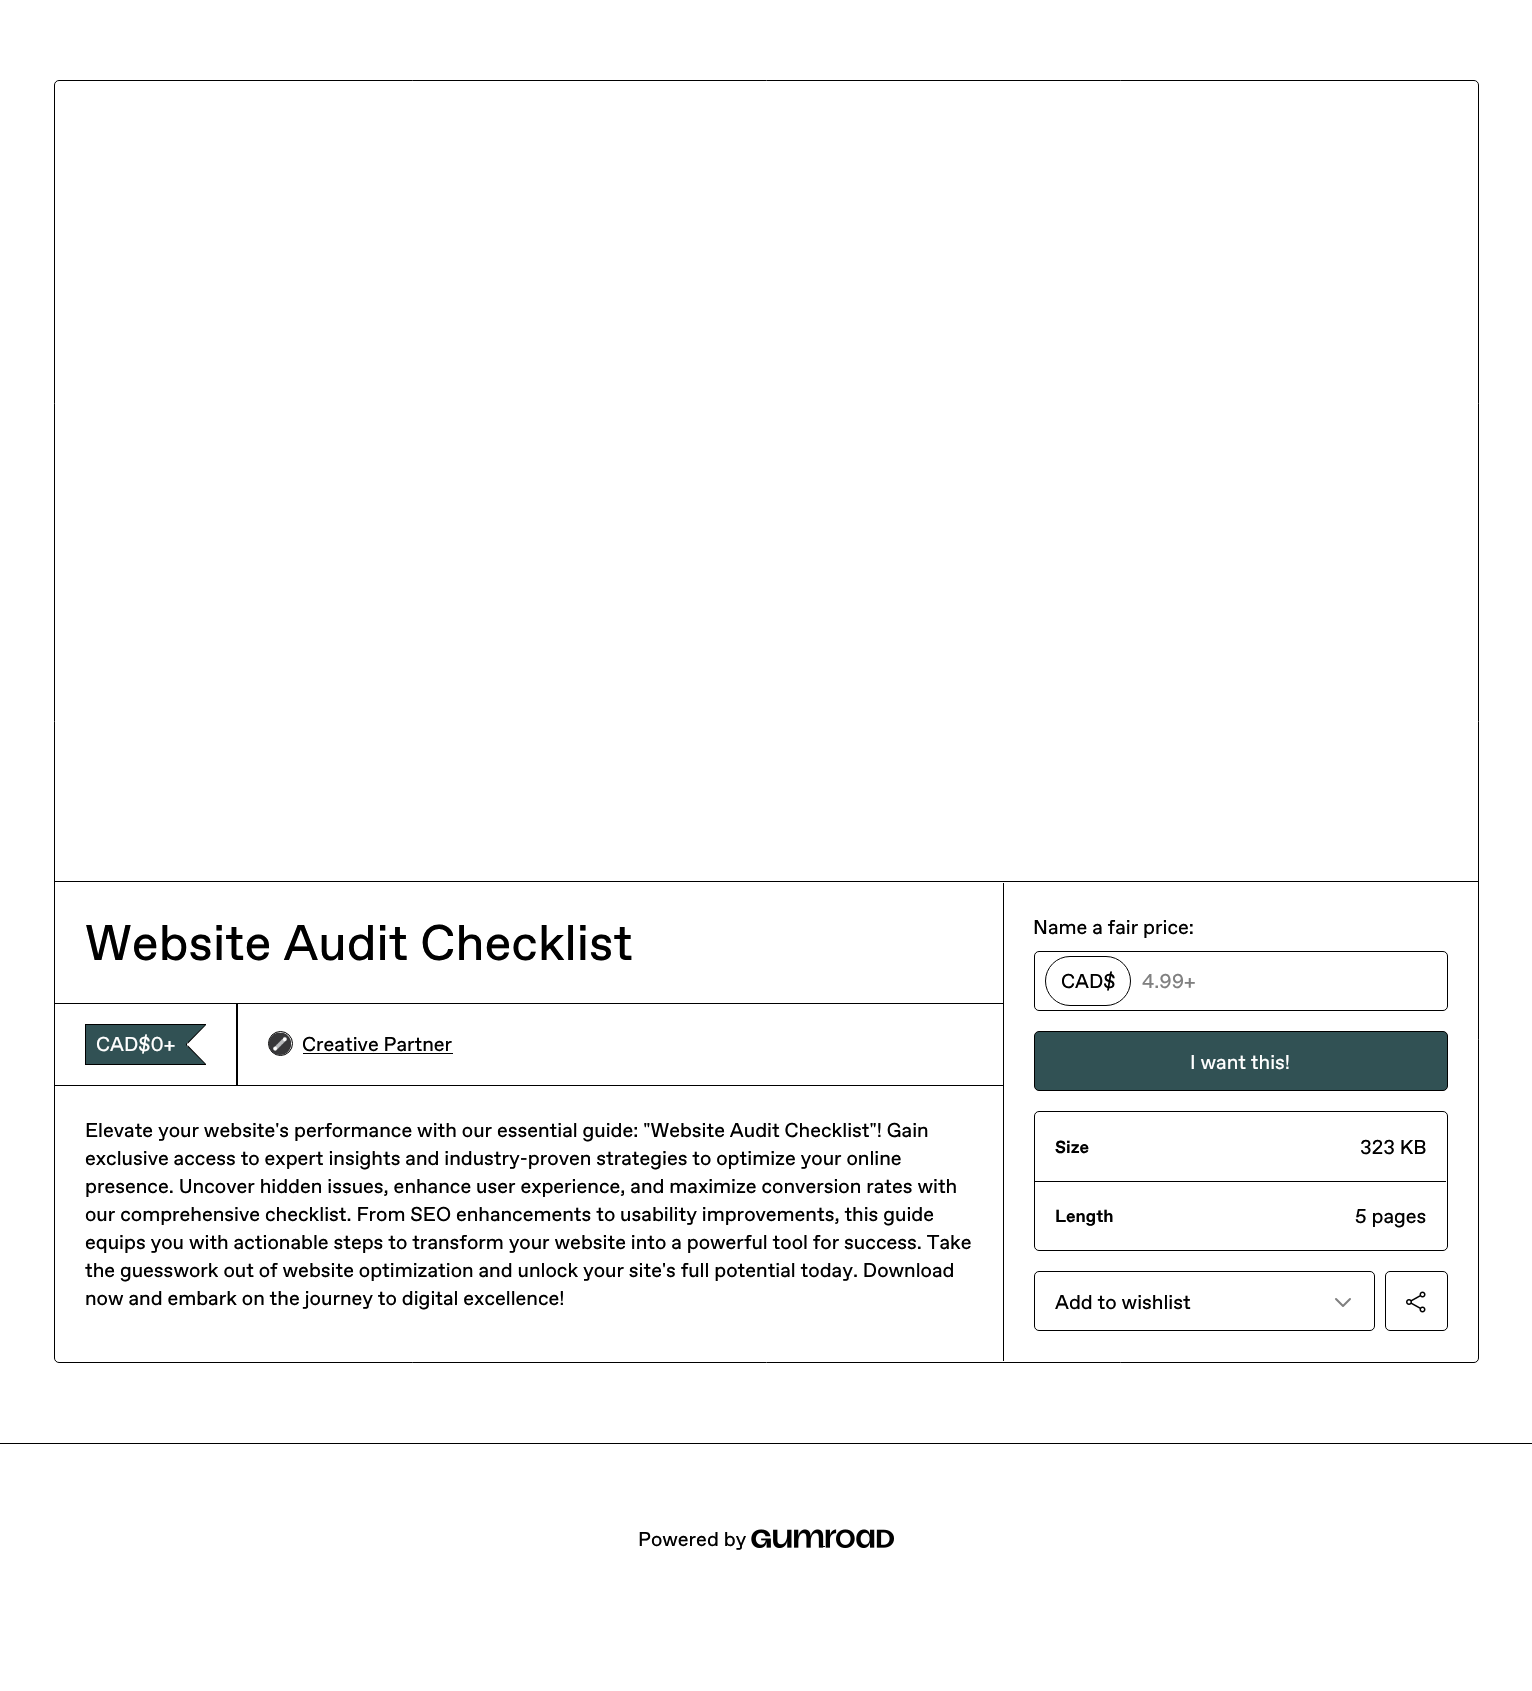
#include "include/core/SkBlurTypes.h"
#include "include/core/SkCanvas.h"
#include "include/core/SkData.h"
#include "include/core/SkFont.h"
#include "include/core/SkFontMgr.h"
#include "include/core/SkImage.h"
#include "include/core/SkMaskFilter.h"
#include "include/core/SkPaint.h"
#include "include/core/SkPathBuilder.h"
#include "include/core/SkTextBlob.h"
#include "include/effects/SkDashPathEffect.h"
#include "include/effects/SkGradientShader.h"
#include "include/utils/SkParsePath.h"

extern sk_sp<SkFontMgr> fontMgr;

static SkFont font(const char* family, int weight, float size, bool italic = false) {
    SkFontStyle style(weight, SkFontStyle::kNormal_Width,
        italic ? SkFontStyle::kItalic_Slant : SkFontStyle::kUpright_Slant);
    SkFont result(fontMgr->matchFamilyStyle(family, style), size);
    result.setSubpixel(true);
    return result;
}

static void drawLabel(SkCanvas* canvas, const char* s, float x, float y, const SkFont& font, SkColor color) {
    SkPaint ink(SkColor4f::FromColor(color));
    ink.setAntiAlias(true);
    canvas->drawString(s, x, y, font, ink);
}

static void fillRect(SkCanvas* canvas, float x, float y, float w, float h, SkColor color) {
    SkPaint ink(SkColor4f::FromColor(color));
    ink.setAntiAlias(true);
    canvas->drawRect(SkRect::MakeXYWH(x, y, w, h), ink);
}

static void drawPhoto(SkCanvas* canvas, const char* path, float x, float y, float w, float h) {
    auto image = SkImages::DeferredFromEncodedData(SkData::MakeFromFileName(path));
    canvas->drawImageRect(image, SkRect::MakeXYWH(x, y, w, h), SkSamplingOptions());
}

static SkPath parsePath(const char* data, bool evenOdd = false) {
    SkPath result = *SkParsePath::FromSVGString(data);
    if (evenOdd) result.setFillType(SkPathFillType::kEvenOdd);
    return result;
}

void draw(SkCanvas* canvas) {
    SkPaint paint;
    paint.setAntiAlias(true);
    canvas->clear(0xFFFFFFFF);
    fillRect(canvas, 0, 1443, 1532, 1, 0xFF000000);
    paint.setStroke(true);
    paint.setStrokeWidth(1);
    paint.setColor(0xFF000000);
    canvas->drawRoundRect(SkRect::MakeXYWH(54.5f, 80.5f, 1424, 1282), 4.5f, 4.5f, paint);
    fillRect(canvas, 55, 881, 1423, 1, 0xFF000000);
    fillRect(canvas, 1003, 883, 1, 478, 0xFF000000);
    SkFont font1 = font("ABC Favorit", 400, 50);
    drawLabel(canvas, "Website Audit Checklist", 85, 960, font1, 0xFF000000);
    canvas->drawRect(SkRect::MakeXYWH(54.5f, 1003.5f, 183, 82), paint);
    fillRect(canvas, 85, 1024, 121, 1, 0xFF000000);
    fillRect(canvas, 85, 1064, 121, 1, 0xFF000000);
    fillRect(canvas, 85, 1024, 1, 41, 0xFF000000);
    fillRect(canvas, 86, 1025, 100, 39, 0xFF315154);
    paint.setStroke(false);
    canvas->drawPath(parsePath("M186 1025H206L187.5 1044ZM206 1064H186L187.5 1045Z"), paint);
    fillRect(canvas, 186, 1043, 1, 3, 0xFF000000);
    paint.setColor(0xFF315154);
    canvas->drawPath(parsePath("M185 1025H205L186 1044ZM205 1064H185L186 1045Z"), paint);
    SkFont font2 = font("ABC Favorit", 400, 20);
    drawLabel(canvas, "CAD$0+", 96, 1051, font2, 0xFFFFFFFF);
    paint.setStroke(true);
    paint.setColor(0xFF000000);
    canvas->drawRect(SkRect::MakeXYWH(236.5f, 1003.5f, 767, 82), paint);
    canvas->drawCircle(280.5f, 1043.5f, 12, paint);
    drawPhoto(canvas, "assets/img1.png", 269, 1032, 23, 23);
    drawLabel(canvas, "Creative Partner", 302, 1051, font2, 0xFF000000);
    fillRect(canvas, 303, 1053, 150, 1, 0xFF000000);
    drawLabel(canvas, "Elevate your website's performance with our essential guide: \"Website Audit Checklist\"! Gain", 85, 1137, font2, 0xFF000000);
    drawLabel(canvas, "exclusive access to expert insights and industry-proven strategies to optimize your online", 85, 1165, font2, 0xFF000000);
    drawLabel(canvas, "presence. Uncover hidden issues, enhance user experience, and maximize conversion rates with", 85, 1193, font2, 0xFF000000);
    drawLabel(canvas, "our comprehensive checklist. From SEO enhancements to usability improvements, this guide", 85, 1221, font2, 0xFF000000);
    drawLabel(canvas, "equips you with actionable steps to transform your website into a powerful tool for success. Take", 85, 1249, font2, 0xFF000000);
    drawLabel(canvas, "the guesswork out of website optimization and unlock your site's full potential today. Download", 85, 1277, font2, 0xFF000000);
    drawLabel(canvas, "now and embark on the journey to digital excellence!", 85, 1305, font2, 0xFF000000);
    drawLabel(canvas, "Name a fair price:", 1033, 934, font2, 0xFF000000);
    canvas->drawRoundRect(SkRect::MakeXYWH(1034.5f, 951.5f, 413, 59), 4.5f, 4.5f, paint);
    canvas->drawRoundRect(SkRect::MakeXYWH(1045.5f, 956.5f, 85, 49), 24.5f, 24.5f, paint);
    drawLabel(canvas, "CAD$", 1061, 988, font2, 0xFF000000);
    drawLabel(canvas, "4.99+", 1142, 988, font2, 0xFF808080);
    paint.setStroke(false);
    paint.setColor(0xFF315154);
    canvas->drawRoundRect(SkRect::MakeXYWH(1034.5f, 1031.5f, 413, 59), 4.5f, 4.5f, paint);
    paint.setStroke(true);
    paint.setColor(0xFF000000);
    canvas->drawRoundRect(SkRect::MakeXYWH(1034.5f, 1031.5f, 413, 59), 4.5f, 4.5f, paint);
    drawLabel(canvas, "I want this!", 1190, 1069, font2, 0xFFFFFFFF);
    canvas->drawRoundRect(SkRect::MakeXYWH(1034.5f, 1111.5f, 413, 139), 4.5f, 4.5f, paint);
    fillRect(canvas, 1035, 1181, 411, 1, 0xFF000000);
    SkFont font3 = font("ABC Favorit", 700, 17.5f);
    drawLabel(canvas, "Size", 1055, 1153, font3, 0xFF000000);
    drawLabel(canvas, "323 KB", 1360, 1154, font2, 0xFF000000);
    drawLabel(canvas, "Length", 1055, 1222, font3, 0xFF000000);
    drawLabel(canvas, "5 pages", 1355, 1223, font2, 0xFF000000);
    canvas->drawRoundRect(SkRect::MakeXYWH(1034.5f, 1271.5f, 340, 59), 4.5f, 4.5f, paint);
    drawLabel(canvas, "Add to wishlist", 1055, 1309, font2, 0xFF000000);
    paint.setStrokeWidth(2);
    paint.setStrokeCap(SkPaint::kRound_Cap);
    paint.setStrokeJoin(SkPaint::kRound_Join);
    paint.setColor(0xFF808080);
    canvas->drawPath(parsePath("M1350 1299L1343 1306L1336 1299"), paint);
    paint.setStrokeWidth(1);
    paint.setStrokeCap(SkPaint::kButt_Cap);
    paint.setStrokeJoin(SkPaint::kMiter_Join);
    paint.setColor(0xFF000000);
    canvas->drawRoundRect(SkRect::MakeXYWH(1385.5f, 1271.5f, 62, 59), 4.5f, 4.5f, paint);
    drawPhoto(canvas, "assets/img2.png", 1406, 1291, 20, 22);
    drawLabel(canvas, "Powered by", 638, 1546, font2, 0xFF000000);
    drawPhoto(canvas, "assets/img3.png", 751, 1529, 143, 19);
    fillRect(canvas, 820, 1546, 5, 1, 0xFF000000);
}
